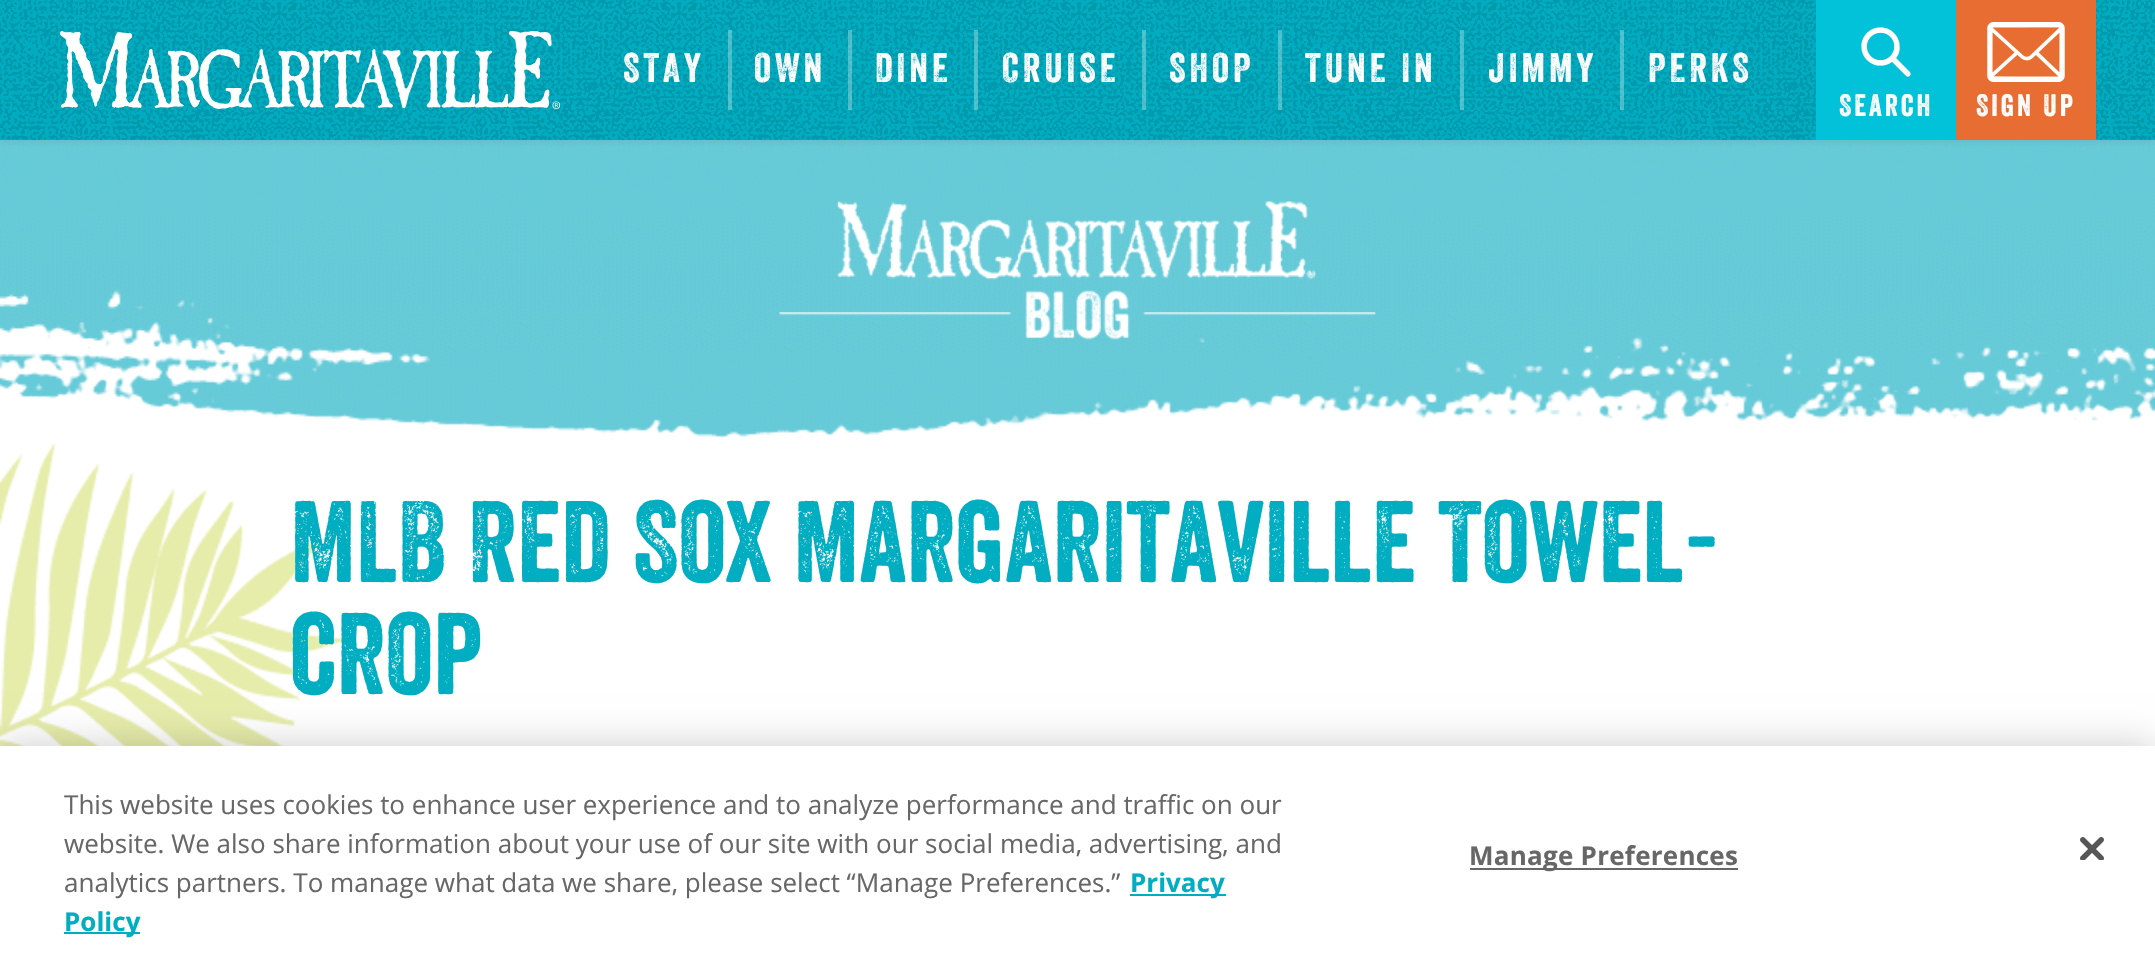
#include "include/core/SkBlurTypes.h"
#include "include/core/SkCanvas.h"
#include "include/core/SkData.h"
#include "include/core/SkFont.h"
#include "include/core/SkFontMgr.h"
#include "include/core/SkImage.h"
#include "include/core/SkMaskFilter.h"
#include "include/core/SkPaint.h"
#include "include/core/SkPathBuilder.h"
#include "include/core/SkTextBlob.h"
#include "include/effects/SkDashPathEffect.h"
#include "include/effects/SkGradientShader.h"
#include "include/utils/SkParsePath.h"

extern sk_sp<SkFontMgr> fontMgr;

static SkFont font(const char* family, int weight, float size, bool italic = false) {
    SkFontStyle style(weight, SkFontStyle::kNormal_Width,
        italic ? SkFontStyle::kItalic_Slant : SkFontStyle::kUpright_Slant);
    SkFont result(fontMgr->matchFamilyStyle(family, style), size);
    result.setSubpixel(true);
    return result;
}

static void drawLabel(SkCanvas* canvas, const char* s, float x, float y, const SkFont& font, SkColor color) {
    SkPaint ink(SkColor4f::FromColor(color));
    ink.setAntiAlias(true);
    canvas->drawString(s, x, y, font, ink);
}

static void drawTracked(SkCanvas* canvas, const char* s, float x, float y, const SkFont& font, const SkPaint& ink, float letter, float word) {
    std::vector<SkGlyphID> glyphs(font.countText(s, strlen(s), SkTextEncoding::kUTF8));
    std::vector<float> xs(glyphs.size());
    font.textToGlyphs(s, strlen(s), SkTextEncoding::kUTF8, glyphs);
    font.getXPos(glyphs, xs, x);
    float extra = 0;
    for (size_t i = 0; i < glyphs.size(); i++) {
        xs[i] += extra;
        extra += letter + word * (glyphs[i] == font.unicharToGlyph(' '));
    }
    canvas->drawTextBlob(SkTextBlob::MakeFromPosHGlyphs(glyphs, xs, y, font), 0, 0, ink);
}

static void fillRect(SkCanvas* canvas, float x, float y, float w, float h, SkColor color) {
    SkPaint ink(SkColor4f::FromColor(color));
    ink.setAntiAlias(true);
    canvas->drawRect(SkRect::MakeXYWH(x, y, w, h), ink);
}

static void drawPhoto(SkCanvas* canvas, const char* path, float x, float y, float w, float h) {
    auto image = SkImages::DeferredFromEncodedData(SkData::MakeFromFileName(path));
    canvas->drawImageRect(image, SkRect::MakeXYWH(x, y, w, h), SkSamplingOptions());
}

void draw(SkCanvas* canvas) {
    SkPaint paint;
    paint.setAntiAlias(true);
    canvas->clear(0xFFFFFFFF);
    drawPhoto(canvas, "assets/img5.png", 0, 140, 2155, 299);
    paint.setColor(0x1A676767);
    paint.setMaskFilter(SkMaskFilter::MakeBlur(kNormal_SkBlurStyle, 2));
    canvas->drawRect(SkRect::MakeXYWH(0, 4, 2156, 140), paint);
    paint.setMaskFilter(nullptr);
    fillRect(canvas, 0, 0, 2155, 140, 0xFF01ABC0);
    drawPhoto(canvas, "assets/img1.png", 0, 0, 2155, 140);
    drawPhoto(canvas, "assets/img2.png", 60, 31, 500, 78);
    SkFont font1 = font("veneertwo", 400, 40);
    paint.setColor(0xFFFFFFFF);
    drawTracked(canvas, "STAY", 623, 82, font1, paint, 4, 0);
    fillRect(canvas, 728, 30, 4, 80, 0x4DFFFFFF);
    drawTracked(canvas, "OWN", 754, 82, font1, paint, 4, 0);
    fillRect(canvas, 848, 30, 4, 80, 0x4DFFFFFF);
    drawTracked(canvas, "DINE", 875, 82, font1, paint, 4, 0);
    fillRect(canvas, 974, 30, 4, 80, 0x4DFFFFFF);
    drawTracked(canvas, "CRUISE", 1002, 82, font1, paint, 4, 0);
    fillRect(canvas, 1142, 30, 4, 80, 0x4DFFFFFF);
    drawTracked(canvas, "SHOP", 1169, 82, font1, paint, 4, 0);
    fillRect(canvas, 1278, 30, 4, 80, 0x4DFFFFFF);
    drawTracked(canvas, "TUNE IN", 1305, 82, font1, paint, 4, 0);
    fillRect(canvas, 1460, 30, 4, 80, 0x4DFFFFFF);
    drawTracked(canvas, "JIMMY", 1488, 82, font1, paint, 4, 0);
    fillRect(canvas, 1620, 30, 4, 80, 0x4DFFFFFF);
    drawTracked(canvas, "PERKS", 1648, 82, font1, paint, 4, 0);
    fillRect(canvas, 1816, 0, 140, 140, 0xFF01C2D9);
    drawPhoto(canvas, "assets/img3.png", 1861, 27, 50, 50);
    SkFont font2 = font("veneertwo", 400, 30);
    drawTracked(canvas, "Search", 1839, 116, font2, paint, 3, 0);
    fillRect(canvas, 1956, 0, 140, 140, 0xFFE86D32);
    drawPhoto(canvas, "assets/img4.png", 1987, 22, 78, 60);
    drawTracked(canvas, "Sign Up", 1976, 116, font2, paint, 3, 0);
    drawPhoto(canvas, "assets/img6.png", 779, 201, 597, 139);
    drawPhoto(canvas, "assets/img7.png", 0, 443, 349, 303);
    SkFont font3 = font("veneertwo", 400, 112);
    drawLabel(canvas, "MLB Red Sox Margaritaville Towel-", 290, 582, font3, 0xFF01ADC1);
    drawLabel(canvas, "crop", 290, 694, font3, 0xFF01ADC1);
    paint.setColor(0x33000000);
    paint.setMaskFilter(SkMaskFilter::MakeBlur(kNormal_SkBlurStyle, 18));
    canvas->drawRect(SkRect::MakeXYWH(0, 746, 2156, 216), paint);
    paint.setMaskFilter(nullptr);
    fillRect(canvas, 0, 746, 2155, 215, 0xFFFFFFFF);
    SkFont font4 = font("Open Sans", 400, 26);
    drawLabel(canvas, "This website uses cookies to enhance user experience and to analyze performance and traffic on our", 64, 814, font4, 0xFF676767);
    drawLabel(canvas, "website. We also share information about your use of our site with our social media, advertising, and", 64, 853, font4, 0xFF676767);
    drawLabel(canvas, "analytics partners. To manage what data we share, please select “Manage Preferences.”", 64, 892, font4, 0xFF676767);
    fillRect(canvas, 1130, 894, 96, 2, 0xFF01ABC0);
    SkFont font5 = font("Open Sans", 700, 26);
    drawLabel(canvas, "Privacy", 1130, 892, font5, 0xFF01ADC1);
    fillRect(canvas, 64, 932, 76, 2, 0xFF01ABC0);
    drawLabel(canvas, "Policy", 64, 931, font5, 0xFF01ADC1);
    fillRect(canvas, 1470, 868, 268, 2, 0xFF676767);
    paint.setColor(0xFF676767);
    drawTracked(canvas, "Manage Preferences", 1469, 865, font5, paint, 0.25f, 0);
    drawPhoto(canvas, "assets/img8.png", 2080, 837, 24, 23);
}
